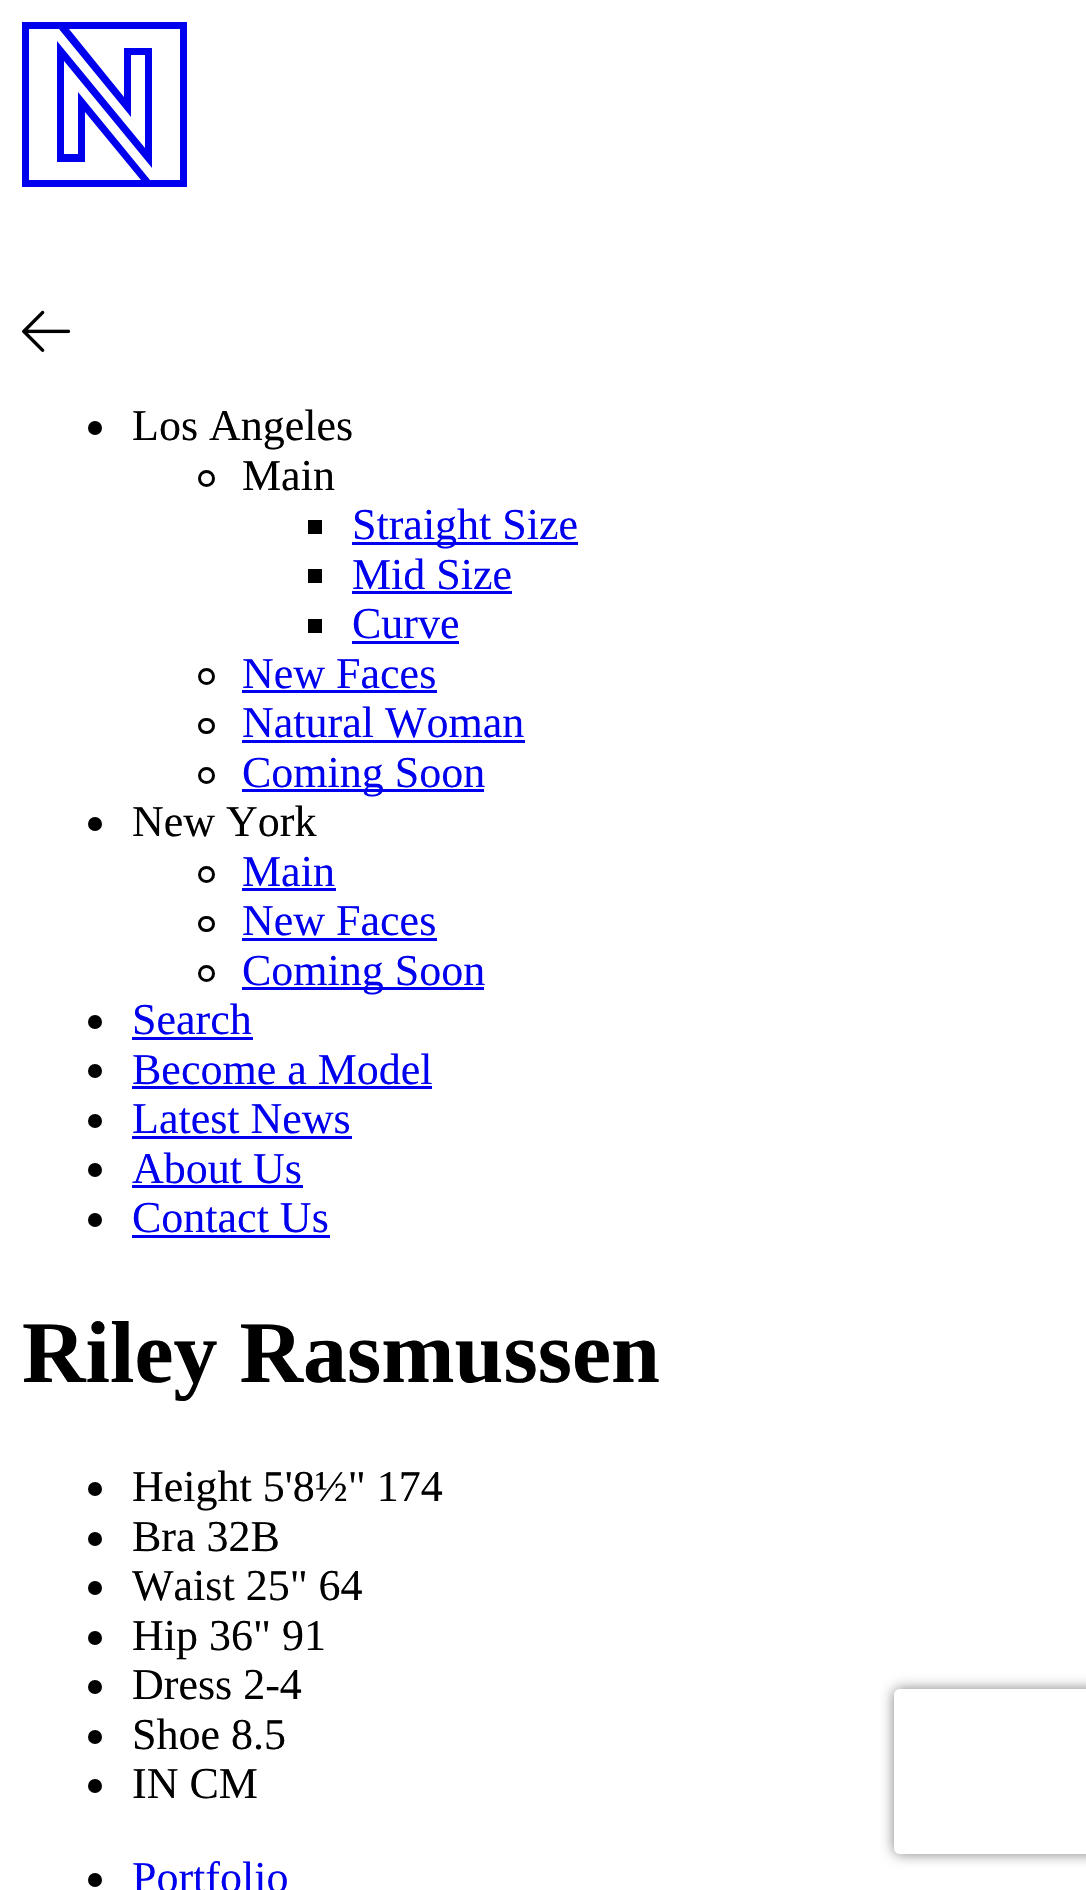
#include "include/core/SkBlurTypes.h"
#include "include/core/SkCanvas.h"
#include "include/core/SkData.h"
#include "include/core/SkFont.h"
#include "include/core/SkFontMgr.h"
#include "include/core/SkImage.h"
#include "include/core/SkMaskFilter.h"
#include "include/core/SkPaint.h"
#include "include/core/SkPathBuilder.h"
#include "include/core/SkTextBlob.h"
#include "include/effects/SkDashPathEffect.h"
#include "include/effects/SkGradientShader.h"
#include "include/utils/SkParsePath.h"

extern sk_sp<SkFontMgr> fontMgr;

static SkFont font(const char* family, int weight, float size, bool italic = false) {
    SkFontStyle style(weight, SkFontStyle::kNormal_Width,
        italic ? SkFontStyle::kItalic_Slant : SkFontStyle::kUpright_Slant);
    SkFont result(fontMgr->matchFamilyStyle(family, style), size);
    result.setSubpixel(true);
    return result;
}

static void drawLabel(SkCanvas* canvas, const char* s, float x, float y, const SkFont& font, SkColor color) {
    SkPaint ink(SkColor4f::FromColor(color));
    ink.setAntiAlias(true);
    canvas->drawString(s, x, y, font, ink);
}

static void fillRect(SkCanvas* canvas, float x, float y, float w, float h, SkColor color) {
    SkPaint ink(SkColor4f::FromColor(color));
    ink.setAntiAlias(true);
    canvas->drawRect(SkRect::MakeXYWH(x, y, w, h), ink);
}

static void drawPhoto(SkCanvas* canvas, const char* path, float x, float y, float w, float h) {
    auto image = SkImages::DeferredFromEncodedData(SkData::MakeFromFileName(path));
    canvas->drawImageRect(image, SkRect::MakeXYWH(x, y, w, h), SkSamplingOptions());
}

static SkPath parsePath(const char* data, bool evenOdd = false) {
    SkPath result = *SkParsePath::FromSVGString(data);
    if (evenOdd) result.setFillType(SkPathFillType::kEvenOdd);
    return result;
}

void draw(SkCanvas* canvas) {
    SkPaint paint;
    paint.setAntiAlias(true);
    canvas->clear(0xFFFFFFFF);
    paint.setColor(0xFF0000EE);
    canvas->drawPath(parsePath("M187 187H22V22H187ZM150 180H180V29H69L124 97V48H152V168L64 61V154H78V92ZM29 180H141L85 112V162H57V41L145 148V55H131V117L59 29H29Z"), paint);
    drawPhoto(canvas, "assets/img1.png", 22, 310, 49, 42);
    paint.setColor(0xFF000000);
    canvas->drawCircle(95, 428, 7, paint);
    SkFont font1 = font("Liberation Serif", 400, 44);
    drawLabel(canvas, "Los Angeles", 132, 440, font1, 0xFF000000);
    paint.setStroke(true);
    paint.setStrokeWidth(3);
    canvas->drawCircle(206.5f, 478.5f, 7, paint);
    drawLabel(canvas, "Main", 242, 490, font1, 0xFF000000);
    fillRect(canvas, 308, 520, 14, 14, 0xFF000000);
    fillRect(canvas, 352, 542, 226, 3, 0xFF0000EE);
    drawLabel(canvas, "Straight Size", 352, 539, font1, 0xFF0000EE);
    fillRect(canvas, 308, 569, 14, 14, 0xFF000000);
    drawLabel(canvas, "Mid Size", 352, 589, font1, 0xFF0000EE);
    fillRect(canvas, 352, 591, 160, 3, 0xFF0000EE);
    fillRect(canvas, 308, 619, 14, 14, 0xFF000000);
    drawLabel(canvas, "Curve", 352, 638, font1, 0xFF0000EE);
    fillRect(canvas, 352, 641, 107, 3, 0xFF0000EE);
    canvas->drawCircle(206.5f, 676.5f, 7, paint);
    drawLabel(canvas, "New Faces", 242, 688, font1, 0xFF0000EE);
    fillRect(canvas, 242, 690, 195, 3, 0xFF0000EE);
    canvas->drawRoundRect(SkRect::MakeXYWH(199.5f, 719.5f, 14, 13), 6.5f, 6.5f, paint);
    drawLabel(canvas, "Natural Woman", 242, 737, font1, 0xFF0000EE);
    fillRect(canvas, 242, 740, 283, 3, 0xFF0000EE);
    canvas->drawCircle(206.5f, 775.5f, 7, paint);
    fillRect(canvas, 242, 789, 242, 3, 0xFF0000EE);
    drawLabel(canvas, "Coming Soon", 242, 787, font1, 0xFF0000EE);
    paint.setStroke(false);
    canvas->drawCircle(95, 824, 7, paint);
    drawLabel(canvas, "New York", 132, 836, font1, 0xFF000000);
    paint.setStroke(true);
    canvas->drawCircle(206.5f, 874.5f, 7, paint);
    drawLabel(canvas, "Main", 242, 886, font1, 0xFF0000EE);
    fillRect(canvas, 242, 888, 94, 3, 0xFF0000EE);
    canvas->drawRoundRect(SkRect::MakeXYWH(199.5f, 917.5f, 14, 13), 6.5f, 6.5f, paint);
    drawLabel(canvas, "New Faces", 242, 935, font1, 0xFF0000EE);
    fillRect(canvas, 242, 938, 195, 3, 0xFF0000EE);
    canvas->drawCircle(206.5f, 973.5f, 7, paint);
    fillRect(canvas, 242, 987, 242, 3, 0xFF0000EE);
    drawLabel(canvas, "Coming Soon", 242, 985, font1, 0xFF0000EE);
    paint.setStroke(false);
    canvas->drawCircle(95, 1022, 7, paint);
    drawLabel(canvas, "Search", 132, 1034, font1, 0xFF0000EE);
    fillRect(canvas, 132, 1037, 121, 3, 0xFF0000EE);
    canvas->drawCircle(95, 1071, 7, paint);
    drawLabel(canvas, "Become a Model", 132, 1084, font1, 0xFF0000EE);
    fillRect(canvas, 132, 1086, 300, 3, 0xFF0000EE);
    canvas->drawCircle(95, 1121, 7, paint);
    drawLabel(canvas, "Latest News", 132, 1133, font1, 0xFF0000EE);
    fillRect(canvas, 132, 1136, 220, 3, 0xFF0000EE);
    canvas->drawCircle(95, 1170, 7, paint);
    drawLabel(canvas, "About Us", 132, 1183, font1, 0xFF0000EE);
    fillRect(canvas, 132, 1185, 171, 3, 0xFF0000EE);
    canvas->drawCircle(95, 1220, 7, paint);
    drawLabel(canvas, "Contact Us", 132, 1232, font1, 0xFF0000EE);
    fillRect(canvas, 132, 1235, 198, 3, 0xFF0000EE);
    SkFont font2 = font("Liberation Serif", 700, 88);
    drawLabel(canvas, "Riley Rasmussen", 22, 1382, font2, 0xFF000000);
    canvas->drawCircle(95, 1489, 7, paint);
    drawLabel(canvas, "Height 5'8½\" 174", 132, 1501, font1, 0xFF000000);
    canvas->drawCircle(95, 1539, 7, paint);
    drawLabel(canvas, "Bra 32B", 132, 1551, font1, 0xFF000000);
    canvas->drawCircle(95, 1588, 7, paint);
    drawLabel(canvas, "Waist 25\" 64", 132, 1600, font1, 0xFF000000);
    canvas->drawCircle(95, 1638, 7, paint);
    drawLabel(canvas, "Hip 36\" 91", 132, 1650, font1, 0xFF000000);
    canvas->drawCircle(95, 1687, 7, paint);
    drawLabel(canvas, "Dress 2-4", 132, 1699, font1, 0xFF000000);
    canvas->drawCircle(95, 1737, 7, paint);
    drawLabel(canvas, "Shoe 8.5", 132, 1749, font1, 0xFF000000);
    canvas->drawCircle(95, 1786, 7, paint);
    drawLabel(canvas, "IN CM", 132, 1798, font1, 0xFF000000);
    canvas->drawCircle(95, 1880, 7, paint);
    drawLabel(canvas, "Portfolio", 132, 1892, font1, 0xFF0000EE);
    canvas->save();
    canvas->clipPath(parsePath("M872 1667H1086V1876H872ZM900 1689H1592C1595.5 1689 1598 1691.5 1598 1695V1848C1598 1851.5 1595.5 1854 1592 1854H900C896.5 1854 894 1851.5 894 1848V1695C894 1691.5 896.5 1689 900 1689Z", true), true);
    paint.setColor(0xFF808080);
    paint.setMaskFilter(SkMaskFilter::MakeBlur(kNormal_SkBlurStyle, 7));
    canvas->drawRoundRect(SkRect::MakeXYWH(894, 1689, 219, 165), 6, 6, paint);
    paint.setMaskFilter(nullptr);
    canvas->restore();
}
